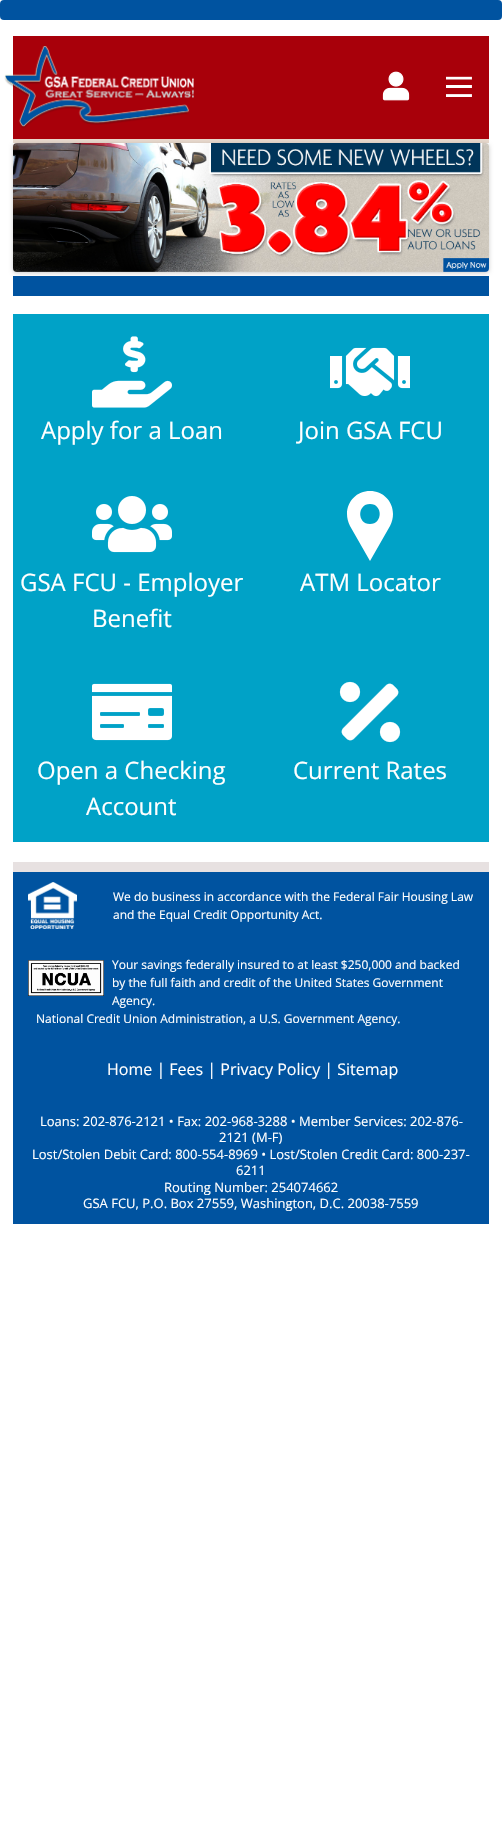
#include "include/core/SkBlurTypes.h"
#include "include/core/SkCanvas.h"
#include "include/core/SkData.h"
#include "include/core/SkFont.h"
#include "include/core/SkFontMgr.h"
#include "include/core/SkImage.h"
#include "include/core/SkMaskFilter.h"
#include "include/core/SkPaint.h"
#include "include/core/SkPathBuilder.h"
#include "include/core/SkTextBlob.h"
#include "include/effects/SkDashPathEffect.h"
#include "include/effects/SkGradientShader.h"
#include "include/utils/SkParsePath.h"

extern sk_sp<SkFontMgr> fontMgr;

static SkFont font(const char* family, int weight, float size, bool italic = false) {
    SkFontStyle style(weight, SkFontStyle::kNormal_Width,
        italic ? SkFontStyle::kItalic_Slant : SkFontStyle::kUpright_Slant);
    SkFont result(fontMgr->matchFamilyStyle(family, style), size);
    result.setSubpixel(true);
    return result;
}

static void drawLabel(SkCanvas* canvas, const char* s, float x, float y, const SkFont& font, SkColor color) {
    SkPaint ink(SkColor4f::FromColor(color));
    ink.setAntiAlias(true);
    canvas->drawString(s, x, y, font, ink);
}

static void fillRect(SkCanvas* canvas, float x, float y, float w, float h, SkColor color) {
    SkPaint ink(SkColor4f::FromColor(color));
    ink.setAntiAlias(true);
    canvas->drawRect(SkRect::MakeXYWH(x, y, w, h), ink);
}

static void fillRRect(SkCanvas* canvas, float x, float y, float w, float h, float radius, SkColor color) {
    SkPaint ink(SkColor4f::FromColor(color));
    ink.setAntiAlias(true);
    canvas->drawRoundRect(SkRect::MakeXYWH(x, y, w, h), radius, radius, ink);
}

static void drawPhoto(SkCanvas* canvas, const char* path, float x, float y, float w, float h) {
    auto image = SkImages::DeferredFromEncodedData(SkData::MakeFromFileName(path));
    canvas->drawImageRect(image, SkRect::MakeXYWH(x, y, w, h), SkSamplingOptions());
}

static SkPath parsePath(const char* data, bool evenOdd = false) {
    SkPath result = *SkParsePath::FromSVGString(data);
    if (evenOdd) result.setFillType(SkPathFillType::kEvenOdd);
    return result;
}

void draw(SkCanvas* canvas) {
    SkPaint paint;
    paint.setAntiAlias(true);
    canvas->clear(0xFFFFFFFF);
    fillRRect(canvas, 0, 0, 502, 20, 4, 0xFF0053A0);
    fillRect(canvas, 13, 36, 476, 103, 0xFFA8000A);
    fillRect(canvas, 13, 139, 476, 4, 0xFFE8D9CD);
    drawPhoto(canvas, "assets/img1.png", 4, 46, 190, 83);
    drawPhoto(canvas, "assets/img2.png", 382, 71, 28, 30);
    drawPhoto(canvas, "assets/img3.png", 446, 76, 26, 21);
    fillRect(canvas, 13, 276, 476, 20, 0xFF0053A0);
    paint.setColor(0x33000000);
    paint.setMaskFilter(SkMaskFilter::MakeBlur(kNormal_SkBlurStyle, 2));
    canvas->drawRoundRect(SkRect::MakeXYWH(13, 144, 476, 129), 4, 4, paint);
    paint.setMaskFilter(nullptr);
    drawPhoto(canvas, "assets/img4.png", 13, 143, 476, 129);
    fillRect(canvas, 13, 314, 476, 152, 0xFF00A2C7);
    drawPhoto(canvas, "assets/img5.png", 92, 336, 80, 72);
    SkFont font1 = font("Open Sans", 400, 24);
    drawLabel(canvas, "Apply for a Loan", 41, 439, font1, 0xFFFFFFFF);
    drawPhoto(canvas, "assets/img6.png", 330, 347, 80, 50);
    drawLabel(canvas, "Join GSA FCU", 298, 439, font1, 0xFFFFFFFF);
    fillRect(canvas, 13, 466, 476, 188, 0xFF00A2C7);
    drawPhoto(canvas, "assets/img7.png", 92, 496, 80, 57);
    drawLabel(canvas, "GSA FCU - Employer", 20, 591, font1, 0xFFFFFFFF);
    drawLabel(canvas, "Benefit", 92, 627, font1, 0xFFFFFFFF);
    paint.setColor(0xFFFFFFFF);
    canvas->drawPath(parsePath("M370 491C383 491 393 501 393 514C393 518 392 522 390 526L370 561L350 526C348 522 347 518 347 514C347 501 357 491 370 491ZM370 504C357 504 357 524 370 524C383 524 383 504 370 504Z", true), paint);
    drawLabel(canvas, "ATM Locator", 300, 591, font1, 0xFFFFFFFF);
    fillRect(canvas, 13, 654, 476, 188, 0xFF00A2C7);
    drawPhoto(canvas, "assets/img8.png", 92, 683, 80, 58);
    drawLabel(canvas, "Open a Checking", 37, 779, font1, 0xFFFFFFFF);
    drawLabel(canvas, "Account", 86, 815, font1, 0xFFFFFFFF);
    drawPhoto(canvas, "assets/img9.png", 339, 681, 62, 62);
    drawLabel(canvas, "Current Rates", 293, 779, font1, 0xFFFFFFFF);
    fillRect(canvas, 13, 872, 476, 352, 0xFF0053A0);
    fillRect(canvas, 13, 862, 476, 10, 0xFFE7E1E1);
    drawPhoto(canvas, "assets/img10.png", 28, 882, 49, 47);
    SkFont font2 = font("Open Sans", 400, 12);
    drawLabel(canvas, "We do business in accordance with the Federal Fair Housing Law", 113, 901, font2, 0xFFFFFFFF);
    drawLabel(canvas, "and the Equal Credit Opportunity Act.", 113, 919, font2, 0xFFFFFFFF);
    drawLabel(canvas, "Your savings federally insured to at least $250,000 and backed", 112, 969, font2, 0xFFFFFFFF);
    drawLabel(canvas, "by the full faith and credit of the United States Government", 112, 987, font2, 0xFFFFFFFF);
    drawLabel(canvas, "Agency.", 112, 1005, font2, 0xFFFFFFFF);
    drawLabel(canvas, "National Credit Union Administration, a U.S. Government Agency.", 36, 1023, font2, 0xFFFFFFFF);
    drawPhoto(canvas, "assets/img11.png", 28, 960, 76, 36);
    SkFont font3 = font("Open Sans", 400, 16);
    drawLabel(canvas, "Home | Fees | Privacy Policy | Sitemap", 107, 1075, font3, 0xFFFFFFFF);
    SkFont font4 = font("Open Sans", 400, 13);
    drawLabel(canvas, "Loans: 202-876-2121 • Fax: 202-968-3288 • Member Services: 202-876-", 40, 1126, font4, 0xFFFFFFFF);
    drawLabel(canvas, "2121 (M-F)", 219, 1142, font4, 0xFFFFFFFF);
    drawLabel(canvas, "Lost/Stolen Debit Card: 800-554-8969 • Lost/Stolen Credit Card: 800-237-", 32, 1159, font4, 0xFFFFFFFF);
    drawLabel(canvas, "6211", 236, 1175, font4, 0xFFFFFFFF);
    drawLabel(canvas, "Routing Number: 254074662", 164, 1192, font4, 0xFFFFFFFF);
    drawLabel(canvas, "GSA FCU, P.O. Box 27559, Washington, D.C. 20038-7559", 83, 1208, font4, 0xFFFFFFFF);
}
